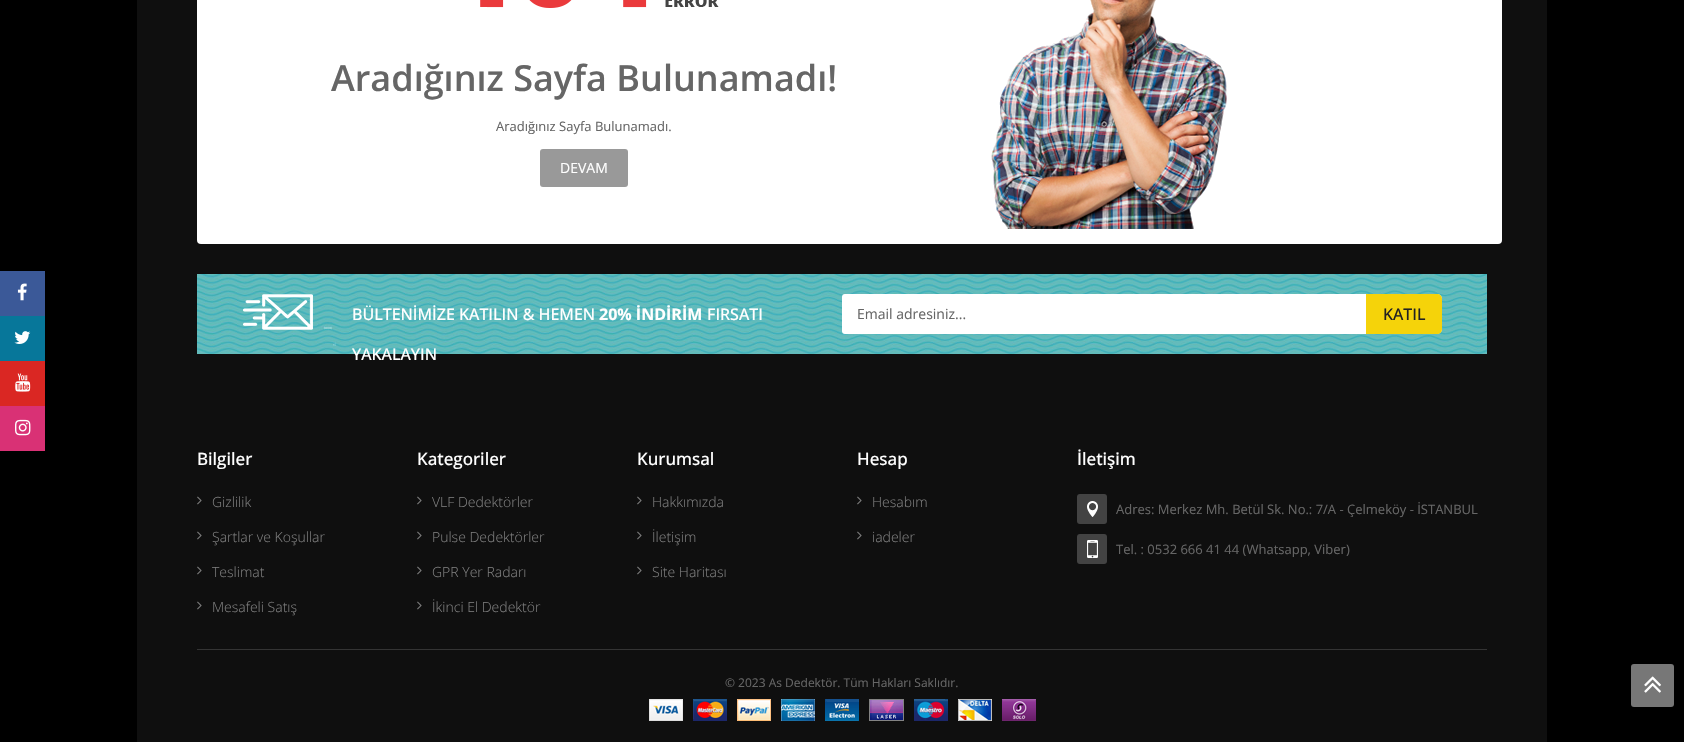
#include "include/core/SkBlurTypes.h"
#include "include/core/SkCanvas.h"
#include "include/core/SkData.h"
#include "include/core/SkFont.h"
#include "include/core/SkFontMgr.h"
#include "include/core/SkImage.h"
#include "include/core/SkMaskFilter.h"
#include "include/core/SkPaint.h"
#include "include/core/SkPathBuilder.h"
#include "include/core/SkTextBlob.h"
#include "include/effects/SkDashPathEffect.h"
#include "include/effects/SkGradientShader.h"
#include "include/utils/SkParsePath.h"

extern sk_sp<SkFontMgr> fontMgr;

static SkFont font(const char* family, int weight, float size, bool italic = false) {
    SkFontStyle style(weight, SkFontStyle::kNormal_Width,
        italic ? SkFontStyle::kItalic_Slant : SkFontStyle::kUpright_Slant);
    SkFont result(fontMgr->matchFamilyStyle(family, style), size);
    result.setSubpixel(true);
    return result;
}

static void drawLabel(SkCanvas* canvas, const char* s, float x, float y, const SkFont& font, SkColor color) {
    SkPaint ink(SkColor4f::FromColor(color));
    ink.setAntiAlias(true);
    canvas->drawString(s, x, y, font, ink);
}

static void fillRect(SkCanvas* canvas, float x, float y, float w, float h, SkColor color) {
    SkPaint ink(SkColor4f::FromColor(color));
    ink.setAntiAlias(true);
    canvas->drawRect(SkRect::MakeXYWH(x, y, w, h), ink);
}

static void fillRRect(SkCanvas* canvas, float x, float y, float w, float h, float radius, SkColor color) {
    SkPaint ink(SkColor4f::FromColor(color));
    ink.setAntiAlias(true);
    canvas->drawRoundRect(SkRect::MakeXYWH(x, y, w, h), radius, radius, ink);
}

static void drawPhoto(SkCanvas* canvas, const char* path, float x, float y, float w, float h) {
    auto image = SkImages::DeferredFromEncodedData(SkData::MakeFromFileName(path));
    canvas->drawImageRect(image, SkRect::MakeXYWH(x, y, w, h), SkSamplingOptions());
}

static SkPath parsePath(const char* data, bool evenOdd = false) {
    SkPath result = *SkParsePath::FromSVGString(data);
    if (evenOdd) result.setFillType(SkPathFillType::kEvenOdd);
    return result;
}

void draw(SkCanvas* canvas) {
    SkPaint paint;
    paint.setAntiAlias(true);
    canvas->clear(0xFF000000);
    fillRect(canvas, 137, 0, 1410, 742, 0xFF0F0F0F);
    fillRRect(canvas, 197, -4, 1305, 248, 4, 0xFFFFFFFF);
    drawPhoto(canvas, "assets/img1.png", 480, 0, 239, 8);
    SkFont font1 = font("Open Sans", 600, 36);
    drawLabel(canvas, "Aradığınız Sayfa Bulunamadı!", 331, 91, font1, 0xFF666666);
    SkFont font2 = font("Open Sans", 400, 13);
    drawLabel(canvas, "Aradığınız Sayfa Bulunamadı.", 496, 131, font2, 0xFF666666);
    fillRRect(canvas, 540, 149, 88, 38, 3, 0xFF999999);
    SkFont font3 = font("Open Sans", 400, 14);
    drawLabel(canvas, "DEVAM", 560, 173, font3, 0xFFFFFFFF);
    drawPhoto(canvas, "assets/img2.png", 991, 0, 236, 229);
    fillRect(canvas, 0, 271, 45, 45, 0xFF3B5998);
    drawPhoto(canvas, "assets/img3.png", 17, 283, 10, 18);
    fillRect(canvas, 0, 316, 45, 45, 0xFF07779A);
    drawPhoto(canvas, "assets/img4.png", 14, 331, 17, 13);
    fillRect(canvas, 0, 361, 45, 45, 0xFFDA2723);
    drawPhoto(canvas, "assets/img5.png", 15, 373, 16, 19);
    fillRect(canvas, 0, 406, 45, 45, 0xFFD93175);
    drawPhoto(canvas, "assets/img6.png", 15, 419, 16, 17);
    drawPhoto(canvas, "assets/img7.png", 197, 274, 1290, 80);
    drawPhoto(canvas, "assets/img8.png", 243, 294, 70, 36);
    SkFont font4 = font("Open Sans", 500, 16);
    drawLabel(canvas, "BÜLTENİMİZE KATILIN & HEMEN", 352, 320, font4, 0xFFFFFFFF);
    SkFont font5 = font("Open Sans", 700, 16);
    drawLabel(canvas, "20% İNDİRİM", 599, 320, font5, 0xFFFFFFFF);
    drawLabel(canvas, "FIRSATI", 707, 320, font4, 0xFFFFFFFF);
    drawLabel(canvas, "YAKALAYIN", 352, 360, font4, 0xFFFFFFFF);
    fillRRect(canvas, 842, 294, 600, 40, 5, 0xFFFFFFFF);
    fillRRect(canvas, 842, 294, 480, 40, 3, 0xFFFFFFFF);
    drawLabel(canvas, "Email adresiniz...", 857, 319, font3, 0xFF666666);
    paint.setColor(0xFFF5D30A);
    canvas->drawPath(parsePath("M1366 294H1437C1440 294 1442 296 1442 299V329C1442 332 1440 334 1437 334H1366Z"), paint);
    drawLabel(canvas, "KATIL", 1383, 320, font4, 0xFF222222);
    fillRect(canvas, 197, 649, 1290, 1, 0xFF343434);
    SkFont font6 = font("Open Sans", 500, 17);
    drawLabel(canvas, "Bilgiler", 197, 465, font6, 0xFFFFFFFF);
    drawPhoto(canvas, "assets/img9.png", 197, 496, 5, 9);
    SkFont font7 = font("Open Sans", 300, 14);
    drawLabel(canvas, "Gizlilik", 212, 507, font7, 0xFF7D7D7D);
    drawPhoto(canvas, "assets/img9.png", 197, 531, 5, 9);
    drawLabel(canvas, "Şartlar ve Koşullar", 212, 542, font7, 0xFF7D7D7D);
    drawPhoto(canvas, "assets/img9.png", 197, 566, 5, 9);
    drawLabel(canvas, "Teslimat", 212, 577, font7, 0xFF7D7D7D);
    drawPhoto(canvas, "assets/img9.png", 197, 601, 5, 9);
    drawLabel(canvas, "Mesafeli Satış", 212, 612, font7, 0xFF7D7D7D);
    drawLabel(canvas, "Kategoriler", 417, 465, font6, 0xFFFFFFFF);
    drawPhoto(canvas, "assets/img9.png", 417, 496, 5, 9);
    drawLabel(canvas, "VLF Dedektörler", 432, 507, font7, 0xFF7D7D7D);
    drawPhoto(canvas, "assets/img9.png", 417, 531, 5, 9);
    drawLabel(canvas, "Pulse Dedektörler", 432, 542, font7, 0xFF7D7D7D);
    drawPhoto(canvas, "assets/img9.png", 417, 566, 5, 9);
    drawLabel(canvas, "GPR Yer Radarı", 432, 577, font7, 0xFF7D7D7D);
    drawPhoto(canvas, "assets/img9.png", 417, 601, 5, 9);
    drawLabel(canvas, "İkinci El Dedektör", 432, 612, font7, 0xFF7D7D7D);
    drawLabel(canvas, "Kurumsal", 637, 465, font6, 0xFFFFFFFF);
    drawPhoto(canvas, "assets/img9.png", 637, 496, 5, 9);
    drawLabel(canvas, "Hakkımızda", 652, 507, font7, 0xFF7D7D7D);
    drawPhoto(canvas, "assets/img9.png", 637, 531, 5, 9);
    drawLabel(canvas, "İletişim", 652, 542, font7, 0xFF7D7D7D);
    drawPhoto(canvas, "assets/img9.png", 637, 566, 5, 9);
    drawLabel(canvas, "Site Haritası", 652, 577, font7, 0xFF7D7D7D);
    drawLabel(canvas, "Hesap", 857, 465, font6, 0xFFFFFFFF);
    drawPhoto(canvas, "assets/img9.png", 857, 496, 5, 9);
    drawLabel(canvas, "Hesabım", 872, 507, font7, 0xFF7D7D7D);
    drawPhoto(canvas, "assets/img9.png", 857, 531, 5, 9);
    drawLabel(canvas, "iadeler", 872, 542, font7, 0xFF7D7D7D);
    drawLabel(canvas, "İletişim", 1077, 465, font6, 0xFFFFFFFF);
    fillRRect(canvas, 1077, 494, 30, 30, 3, 0xFF434343);
    drawPhoto(canvas, "assets/img10.png", 1087, 501, 11, 16);
    drawLabel(canvas, "Adres: Merkez Mh. Betül Sk. No.: 7/A - Çelmeköy - İSTANBUL", 1116, 514, font2, 0xFF666666);
    fillRRect(canvas, 1077, 534, 30, 30, 3, 0xFF434343);
    drawPhoto(canvas, "assets/img11.png", 1087, 540, 11, 18);
    drawLabel(canvas, "Tel. : 0532 666 41 44 (Whatsapp, Viber)", 1116, 554, font2, 0xFF666666);
    SkFont font8 = font("Open Sans", 400, 12);
    drawLabel(canvas, "© 2023 As Dedektör. Tüm Hakları Saklıdır.", 725, 687, font8, 0xFF666666);
    drawPhoto(canvas, "assets/img12.png", 649, 699, 387, 22);
    fillRRect(canvas, 1631, 664, 43, 43, 3, 0xFF777777);
    drawPhoto(canvas, "assets/img13.png", 1644, 676, 17, 17);
}
